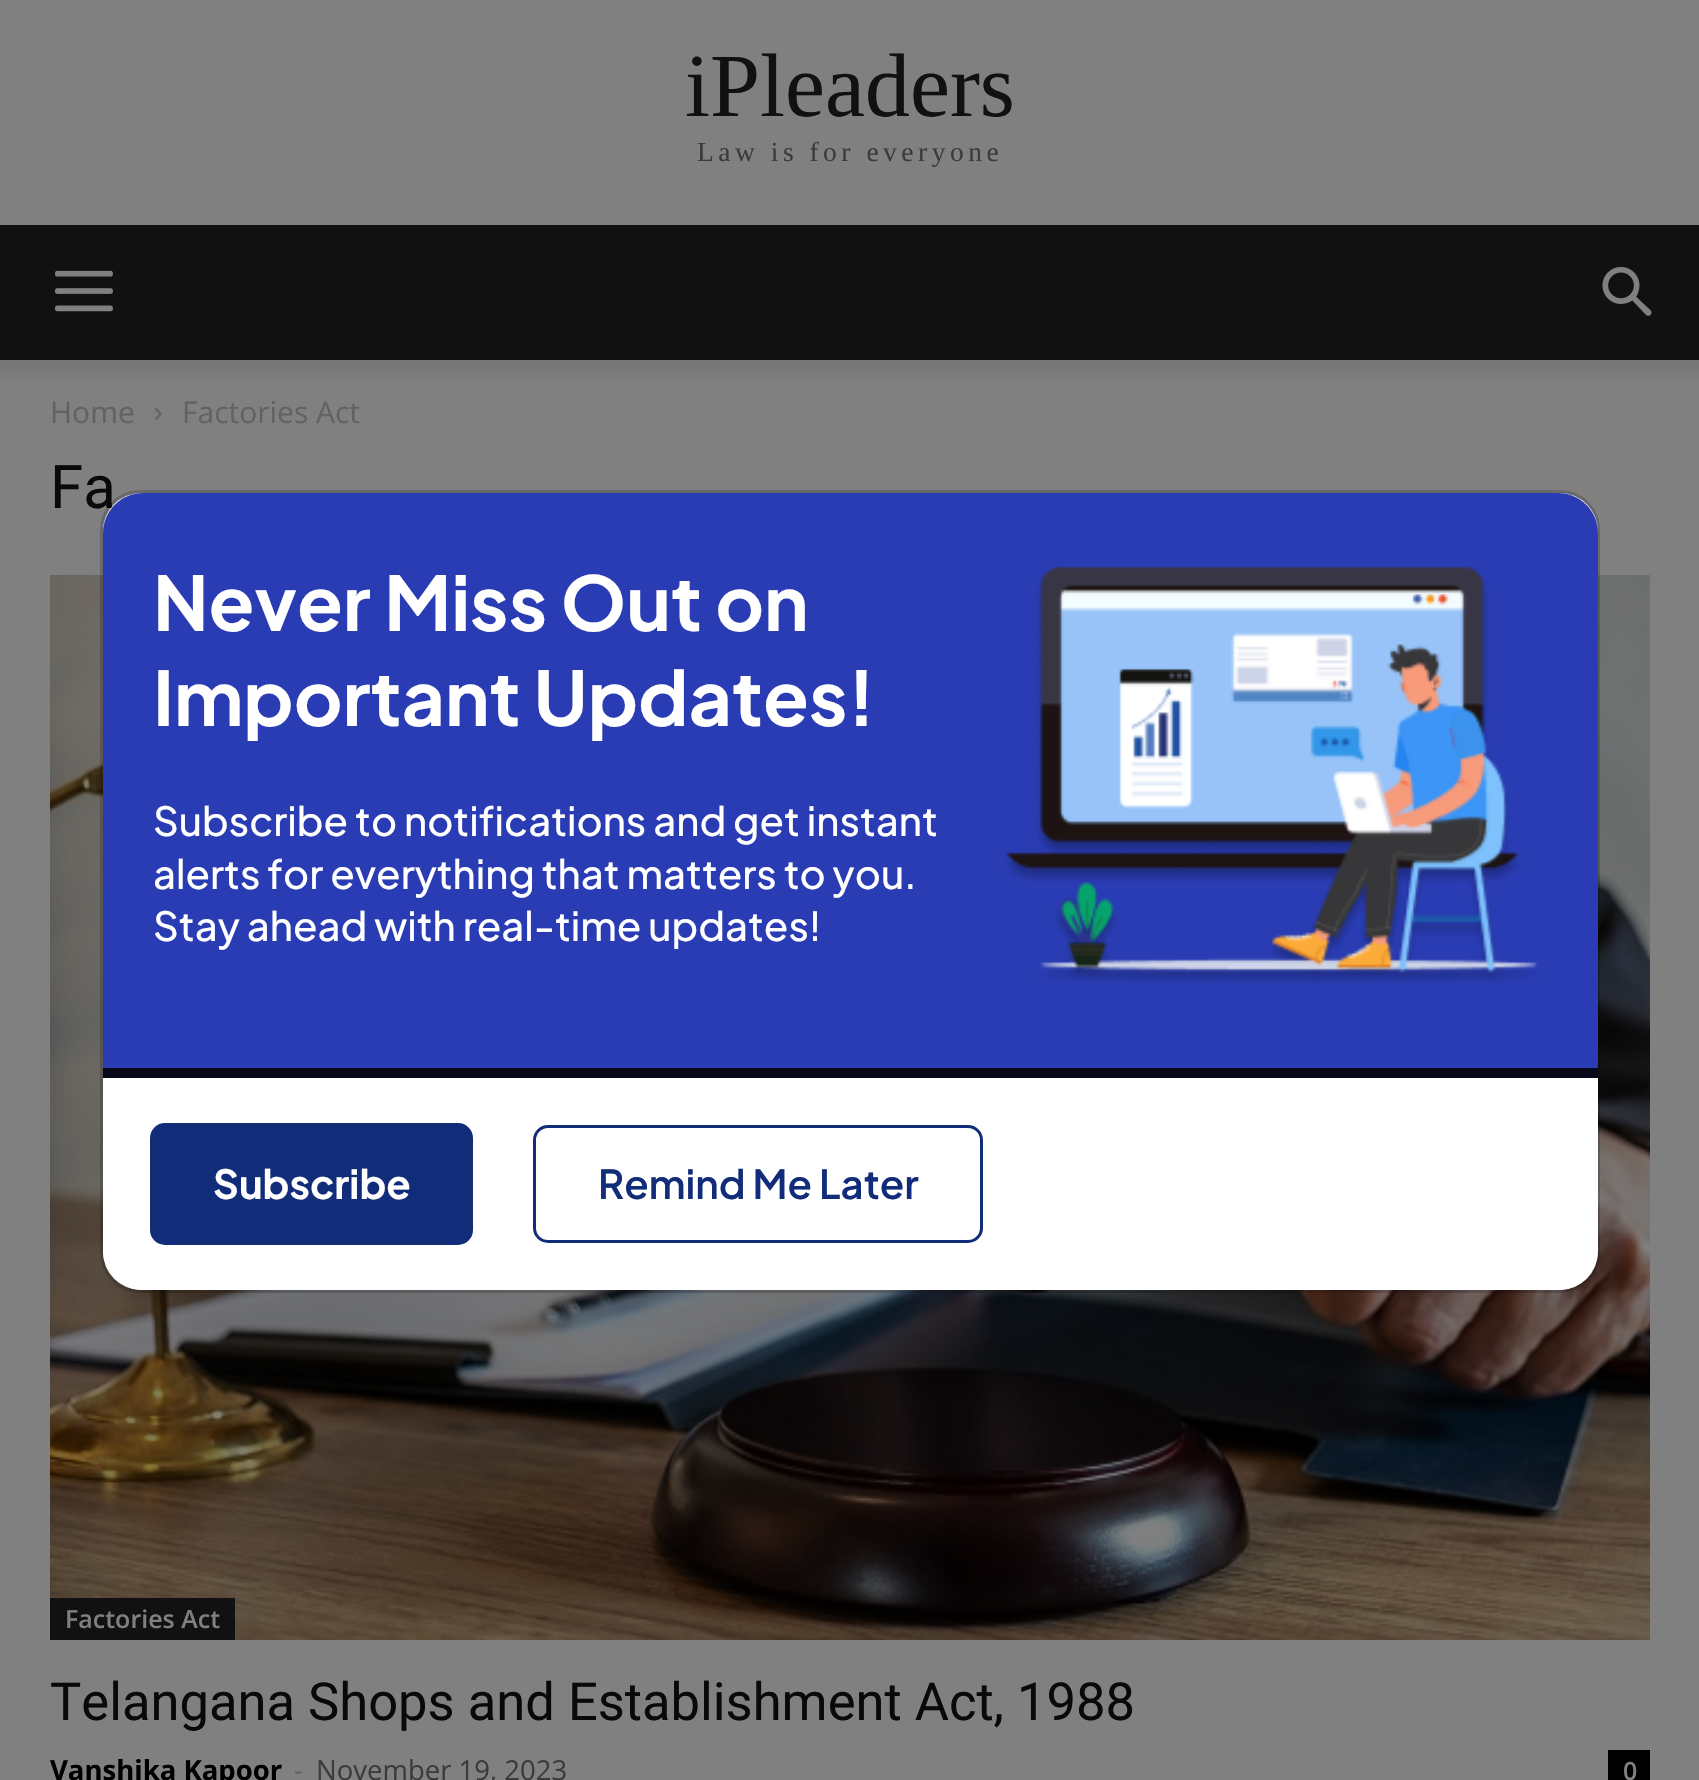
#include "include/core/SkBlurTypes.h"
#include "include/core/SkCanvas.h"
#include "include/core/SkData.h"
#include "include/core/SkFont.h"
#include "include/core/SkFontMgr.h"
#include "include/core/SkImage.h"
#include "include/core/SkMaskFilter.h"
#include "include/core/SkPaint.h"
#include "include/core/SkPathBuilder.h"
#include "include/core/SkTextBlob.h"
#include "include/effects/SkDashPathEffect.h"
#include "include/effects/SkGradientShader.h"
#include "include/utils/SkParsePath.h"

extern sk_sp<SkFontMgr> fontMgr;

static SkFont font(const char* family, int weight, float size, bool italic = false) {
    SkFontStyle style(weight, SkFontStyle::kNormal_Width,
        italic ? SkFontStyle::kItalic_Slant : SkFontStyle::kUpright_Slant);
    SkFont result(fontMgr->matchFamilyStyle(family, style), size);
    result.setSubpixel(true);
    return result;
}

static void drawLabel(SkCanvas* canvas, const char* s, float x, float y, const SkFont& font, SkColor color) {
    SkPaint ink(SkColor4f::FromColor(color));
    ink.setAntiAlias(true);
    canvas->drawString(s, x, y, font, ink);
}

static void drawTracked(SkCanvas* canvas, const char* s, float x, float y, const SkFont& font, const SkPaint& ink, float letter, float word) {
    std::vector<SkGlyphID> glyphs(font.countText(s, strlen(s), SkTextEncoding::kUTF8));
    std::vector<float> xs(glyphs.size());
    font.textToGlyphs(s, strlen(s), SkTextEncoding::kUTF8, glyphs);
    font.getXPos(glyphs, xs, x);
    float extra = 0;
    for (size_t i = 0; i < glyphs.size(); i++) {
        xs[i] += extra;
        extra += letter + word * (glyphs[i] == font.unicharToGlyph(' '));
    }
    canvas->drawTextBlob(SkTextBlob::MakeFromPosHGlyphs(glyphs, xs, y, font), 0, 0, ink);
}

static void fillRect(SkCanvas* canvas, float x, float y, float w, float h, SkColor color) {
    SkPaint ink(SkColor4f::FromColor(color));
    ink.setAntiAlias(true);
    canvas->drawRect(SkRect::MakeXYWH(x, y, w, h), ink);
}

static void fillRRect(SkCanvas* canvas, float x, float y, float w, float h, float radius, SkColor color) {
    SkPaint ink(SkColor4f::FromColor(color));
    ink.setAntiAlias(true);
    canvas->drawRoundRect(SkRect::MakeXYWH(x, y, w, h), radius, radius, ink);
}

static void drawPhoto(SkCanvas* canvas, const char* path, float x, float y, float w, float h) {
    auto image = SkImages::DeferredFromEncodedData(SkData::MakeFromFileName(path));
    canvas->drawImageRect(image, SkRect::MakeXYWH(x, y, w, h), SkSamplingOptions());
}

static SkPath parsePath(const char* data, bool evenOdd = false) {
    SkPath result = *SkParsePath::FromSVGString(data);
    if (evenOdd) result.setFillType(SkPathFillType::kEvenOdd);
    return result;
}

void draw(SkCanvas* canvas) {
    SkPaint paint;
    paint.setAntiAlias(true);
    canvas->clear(0xFF808080);
    SkFont font1 = font("Liberation Serif", 400, 90);
    drawLabel(canvas, "iPleaders", 685, 116, font1, 0xFF111111);
    SkFont font2 = font("Liberation Serif", 400, 27.5f);
    paint.setColor(0xFF3B3B3B);
    drawTracked(canvas, "Law is for everyone", 697, 161, font2, paint, 4.5f, 0);
    fillRect(canvas, 0, 225, 1699, 135, 0xFF111111);
    drawPhoto(canvas, "assets/img1.png", 55, 270, 58, 42);
    drawPhoto(canvas, "assets/img2.png", 1602, 267, 50, 49);
    drawPhoto(canvas, "assets/img3.png", 0, 360, 1699, 21);
    SkFont font3 = font("Open Sans", 400, 30);
    drawLabel(canvas, "Home", 50, 423, font3, 0xFF626262);
    drawPhoto(canvas, "assets/img4.png", 155, 408, 7, 12);
    drawLabel(canvas, "Factories Act", 182, 423, font3, 0xFF626262);
    SkFont font4 = font("Roboto", 400, 60);
    drawLabel(canvas, "Fa", 50, 508, font4, 0xFF090909);
    drawPhoto(canvas, "assets/img5.png", 50, 575, 1600, 1065);
    fillRect(canvas, 50, 1598, 185, 42, 0xFF111111);
    SkFont font5 = font("Open Sans", 600, 25);
    drawLabel(canvas, "Factories Act", 65, 1628, font5, 0xFF808080);
    SkFont font6 = font("Roboto", 400, 52.5f);
    drawLabel(canvas, "Telangana Shops and Establishment Act, 1988", 50, 1720, font6, 0xFF090909);
    SkFont font7 = font("Open Sans", 700, 27.5f);
    drawLabel(canvas, "Vanshika Kapoor", 50, 1780, font7, 0xFF000000);
    SkFont font8 = font("Open Sans", 400, 27.5f);
    drawLabel(canvas, "-", 294, 1780, font8, 0xFF626262);
    drawLabel(canvas, "November 19, 2023", 316, 1780, font8, 0xFF3B3B3B);
    fillRect(canvas, 1608, 1750, 42, 30, 0xFF000000);
    drawLabel(canvas, "0", 1623, 1780, font5, 0xFF808080);
    fillRRect(canvas, 103, 493, 1495, 797, 38, 0xFFFFFFFF);
    paint.setStroke(true);
    paint.setStrokeWidth(3);
    paint.setColor(0x2E000000);
    canvas->drawRoundRect(SkRect::MakeXYWH(101.5f, 491.5f, 1497, 800), 38.5f, 38.5f, paint);
    paint.setStroke(false);
    paint.setColor(0xFF293CB3);
    canvas->drawPath(parsePath("M143 493H1558C1580 493 1598 511 1598 533V1068H103V533C103 511 121 493 143 493Z"), paint);
    SkFont font9 = font("Plus Jakarta Sans", 700, 75);
    drawLabel(canvas, "Never Miss Out on", 153, 631, font9, 0xFFFFFFFF);
    drawLabel(canvas, "Important Updates!", 153, 726, font9, 0xFFFFFFFF);
    SkFont font10 = font("Plus Jakarta Sans", 500, 40);
    drawLabel(canvas, "Subscribe to notifications and get instant", 153, 836, font10, 0xFFFFFFFF);
    drawLabel(canvas, "alerts for everything that matters to you.", 153, 889, font10, 0xFFFFFFFF);
    drawLabel(canvas, "Stay ahead with real-time updates!", 153, 941, font10, 0xFFFFFFFF);
    drawPhoto(canvas, "assets/img6.png", 1005, 566, 533, 418);
    paint.setColor(0xFFFFFFFF);
    canvas->drawPath(parsePath("M103 1068H1598V1250C1598 1272 1580 1290 1558 1290H143C121 1290 103 1272 103 1250Z"), paint);
    fillRect(canvas, 103, 1068, 1495, 10, 0xFF07091B);
    fillRRect(canvas, 150, 1123, 323, 122, 15, 0xFF112C79);
    SkFont font11 = font("Plus Jakarta Sans", 700, 40);
    drawLabel(canvas, "Subscribe", 213, 1199, font11, 0xFFFFFFFF);
    paint.setStroke(true);
    paint.setColor(0xFF112C79);
    canvas->drawRoundRect(SkRect::MakeXYWH(534.5f, 1126.5f, 447, 115), 13.5f, 13.5f, paint);
    SkFont font12 = font("Plus Jakarta Sans", 600, 40);
    drawLabel(canvas, "Remind Me Later", 598, 1199, font12, 0xFF112C79);
}
